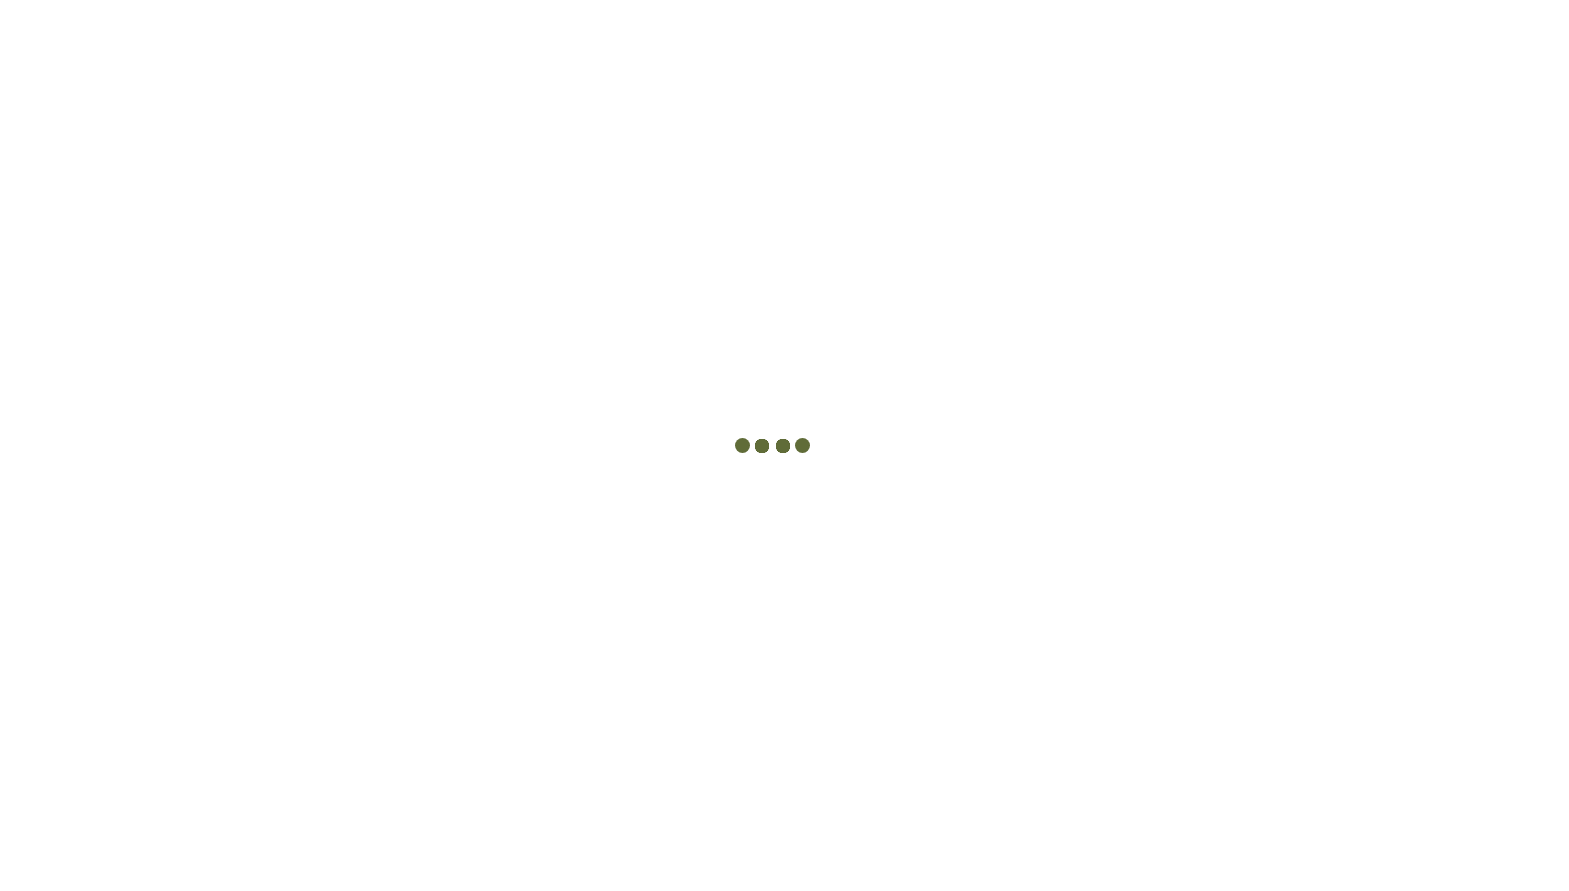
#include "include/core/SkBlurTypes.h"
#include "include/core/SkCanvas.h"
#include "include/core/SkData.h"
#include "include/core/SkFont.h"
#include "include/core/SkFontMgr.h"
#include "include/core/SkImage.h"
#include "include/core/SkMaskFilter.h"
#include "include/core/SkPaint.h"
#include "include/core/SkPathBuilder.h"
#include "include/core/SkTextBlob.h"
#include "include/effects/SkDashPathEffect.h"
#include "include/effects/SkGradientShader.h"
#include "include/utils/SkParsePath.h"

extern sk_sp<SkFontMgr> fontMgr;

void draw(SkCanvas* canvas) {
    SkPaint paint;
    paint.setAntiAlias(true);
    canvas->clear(0xFFFFFFFF);
    {
        const SkColor colors[] = {0xFF606C38, 0xFFFFFFFF};
        const float stops[] = {0.95f, 1};
        paint.setShader(SkGradientShader::MakeRadial({783, 446}, 7.5f, colors, stops, 2, SkTileMode::kClamp));
        paint.setAlpha(255);
    }
    canvas->drawRect(SkRect::MakeXYWH(776, 439, 14, 14), paint);
    {
        const SkColor colors[] = {0xFF606C38, 0xFFFFFFFF};
        const float stops[] = {0.95f, 1};
        paint.setShader(SkGradientShader::MakeRadial({762, 446}, 7.5f, colors, stops, 2, SkTileMode::kClamp));
        paint.setAlpha(255);
    }
    canvas->drawRect(SkRect::MakeXYWH(755, 439, 14, 14), paint);
    paint.setShader(nullptr);
    paint.setColor(0xFF606C38);
    canvas->drawCircle(742.5f, 445.5f, 7.5f, paint);
    canvas->drawCircle(802.5f, 445.5f, 7.5f, paint);
}
